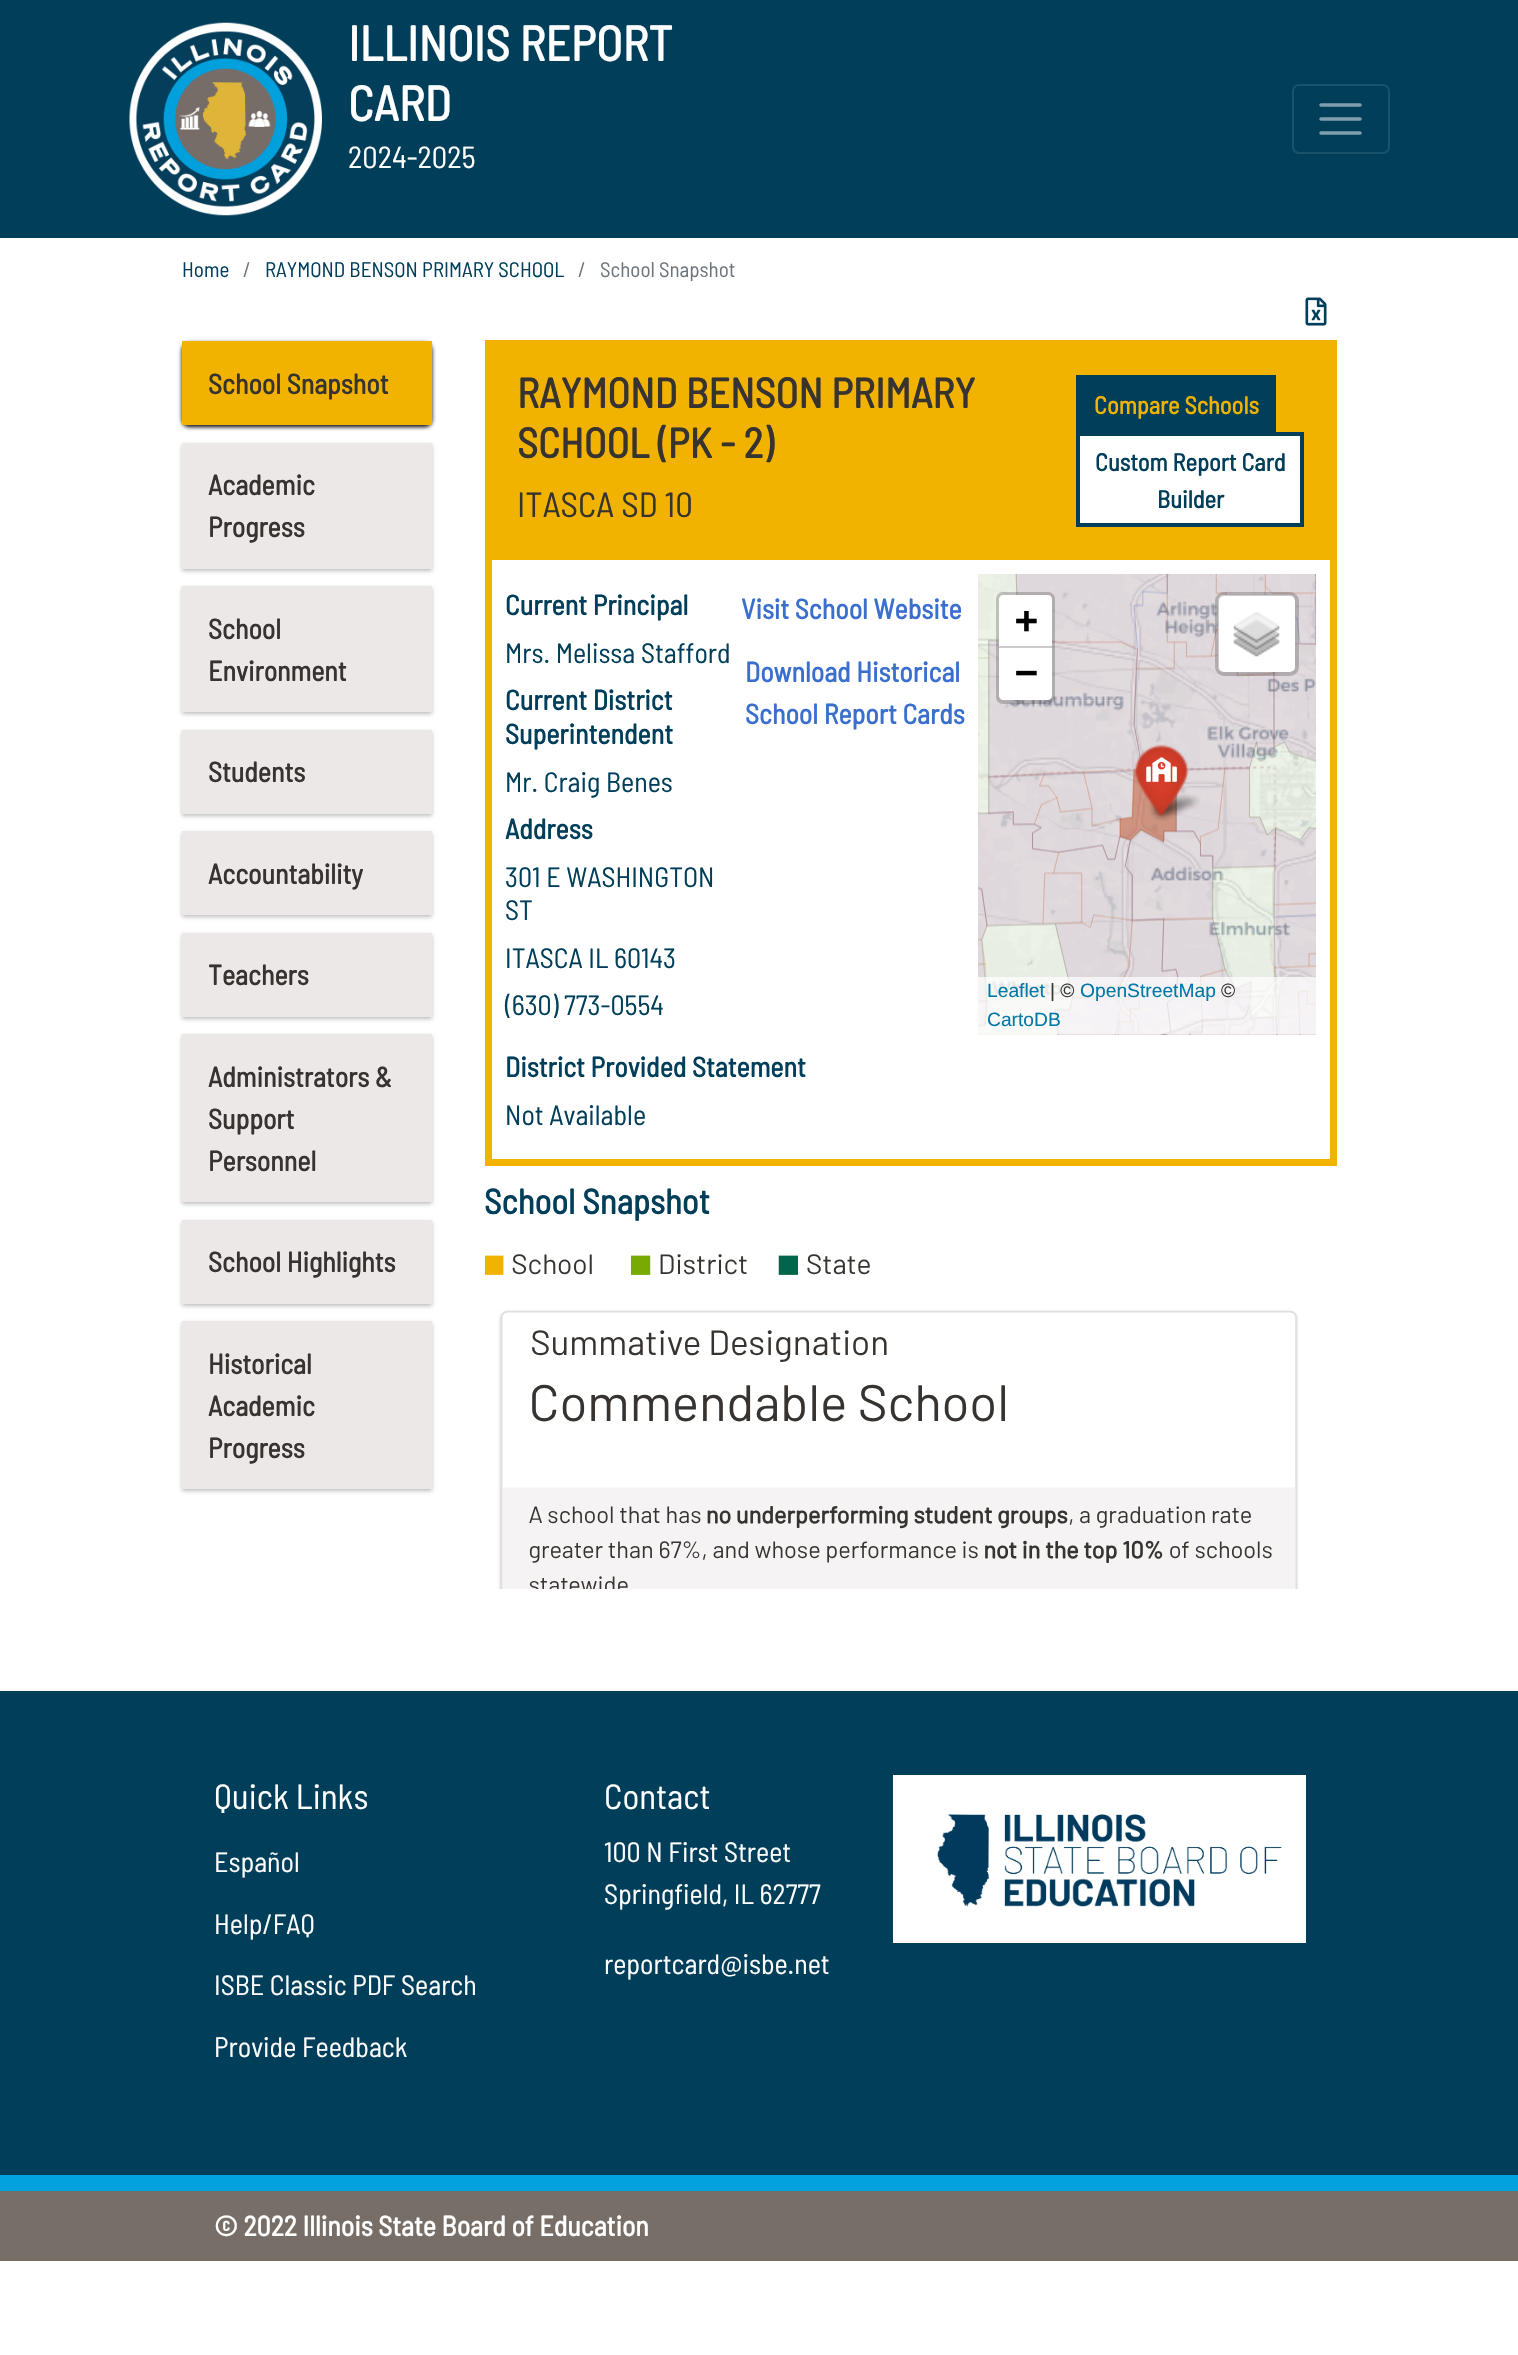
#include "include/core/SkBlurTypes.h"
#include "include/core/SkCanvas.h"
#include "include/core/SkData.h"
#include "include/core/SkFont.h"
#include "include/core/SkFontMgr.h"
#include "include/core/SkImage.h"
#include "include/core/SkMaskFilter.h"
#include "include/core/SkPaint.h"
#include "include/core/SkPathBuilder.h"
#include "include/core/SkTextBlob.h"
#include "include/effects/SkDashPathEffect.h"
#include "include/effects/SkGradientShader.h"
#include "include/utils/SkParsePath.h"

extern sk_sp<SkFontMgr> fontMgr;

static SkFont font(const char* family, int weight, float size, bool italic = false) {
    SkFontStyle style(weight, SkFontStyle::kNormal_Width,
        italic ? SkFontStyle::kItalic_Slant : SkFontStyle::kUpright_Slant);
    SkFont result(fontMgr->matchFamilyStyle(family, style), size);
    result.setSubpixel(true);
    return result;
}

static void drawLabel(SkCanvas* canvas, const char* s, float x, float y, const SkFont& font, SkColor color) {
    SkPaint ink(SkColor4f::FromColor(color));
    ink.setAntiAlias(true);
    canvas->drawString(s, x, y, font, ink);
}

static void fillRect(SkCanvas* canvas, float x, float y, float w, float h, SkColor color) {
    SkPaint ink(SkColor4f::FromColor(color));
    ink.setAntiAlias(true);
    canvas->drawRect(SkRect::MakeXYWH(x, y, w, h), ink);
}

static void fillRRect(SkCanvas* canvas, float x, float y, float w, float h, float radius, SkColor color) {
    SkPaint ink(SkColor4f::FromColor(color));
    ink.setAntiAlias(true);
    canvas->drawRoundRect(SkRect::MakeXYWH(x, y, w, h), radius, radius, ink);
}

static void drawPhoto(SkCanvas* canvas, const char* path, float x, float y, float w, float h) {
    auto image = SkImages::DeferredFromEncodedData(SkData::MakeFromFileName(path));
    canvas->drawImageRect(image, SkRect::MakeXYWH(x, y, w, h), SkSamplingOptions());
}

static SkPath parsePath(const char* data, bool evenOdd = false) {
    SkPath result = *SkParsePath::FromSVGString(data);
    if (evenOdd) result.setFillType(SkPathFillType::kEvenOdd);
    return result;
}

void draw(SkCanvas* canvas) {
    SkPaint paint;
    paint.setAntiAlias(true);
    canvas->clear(0xFFFFFFFF);
    fillRect(canvas, 0, 0, 1518, 238, 0xFF003E5A);
    drawPhoto(canvas, "assets/img1.png", 129, 22, 193, 194);
    SkFont font1 = font("Barlow Semi Condensed", 700, 49);
    drawLabel(canvas, "ILLINOIS REPORT", 348, 61, font1, 0xFFFFFFFF);
    drawLabel(canvas, "CARD", 348, 121, font1, 0xFFFFFFFF);
    SkFont font2 = font("Barlow Semi Condensed", 400, 30.5f);
    drawLabel(canvas, "2024-2025", 348, 168, font2, 0xFFFFFFFF);
    paint.setStroke(true);
    paint.setStrokeWidth(2);
    paint.setColor(0xFF1A516B);
    canvas->drawRoundRect(SkRect::MakeXYWH(1293, 85, 96, 68), 6, 6, paint);
    paint.setStrokeWidth(3.5f);
    paint.setStrokeCap(SkPaint::kRound_Cap);
    paint.setColor(0xFF809FAD);
    canvas->drawPath(parsePath("M1321 105H1360M1321 119H1360M1321 133H1360"), paint);
    SkFont font3 = font("Barlow Semi Condensed", 400, 21);
    drawLabel(canvas, "Home", 182, 277, font3, 0xFF003E5A);
    drawLabel(canvas, "/", 243, 277, font3, 0xFF6C757D);
    drawLabel(canvas, "RAYMOND BENSON PRIMARY SCHOOL", 265, 277, font3, 0xFF003E5A);
    drawLabel(canvas, "/", 578, 277, font3, 0xFF6C757D);
    drawLabel(canvas, "School Snapshot", 600, 277, font3, 0xFF6C757D);
    paint.setStroke(false);
    paint.setColor(0xFF000000);
    paint.setMaskFilter(SkMaskFilter::MakeBlur(kNormal_SkBlurStyle, 2));
    canvas->drawRoundRect(SkRect::MakeXYWH(182, 343, 250, 84), 7, 7, paint);
    paint.setMaskFilter(nullptr);
    fillRect(canvas, 182, 341, 250, 84, 0xFFF1B300);
    SkFont font4 = font("Barlow Semi Condensed", 700, 28);
    drawLabel(canvas, "School Snapshot", 208, 394, font4, 0xFF363330);
    paint.setColor(0x40000000);
    paint.setMaskFilter(SkMaskFilter::MakeBlur(kNormal_SkBlurStyle, 2));
    canvas->drawRect(SkRect::MakeXYWH(182, 445, 250, 126), paint);
    paint.setMaskFilter(nullptr);
    fillRect(canvas, 182, 443, 250, 126, 0xFFEBE8E7);
    drawLabel(canvas, "Academic", 208, 495, font4, 0xFF363330);
    drawLabel(canvas, "Progress", 208, 537, font4, 0xFF363330);
    paint.setMaskFilter(SkMaskFilter::MakeBlur(kNormal_SkBlurStyle, 2));
    canvas->drawRect(SkRect::MakeXYWH(182, 588, 250, 126), paint);
    paint.setMaskFilter(nullptr);
    fillRect(canvas, 182, 586, 250, 126, 0xFFEBE8E7);
    drawLabel(canvas, "School", 208, 639, font4, 0xFF363330);
    drawLabel(canvas, "Environment", 208, 681, font4, 0xFF363330);
    paint.setMaskFilter(SkMaskFilter::MakeBlur(kNormal_SkBlurStyle, 2));
    canvas->drawRect(SkRect::MakeXYWH(182, 732, 250, 84), paint);
    paint.setMaskFilter(nullptr);
    fillRect(canvas, 182, 730, 250, 84, 0xFFEBE8E7);
    drawLabel(canvas, "Students", 208, 782, font4, 0xFF363330);
    paint.setMaskFilter(SkMaskFilter::MakeBlur(kNormal_SkBlurStyle, 2));
    canvas->drawRect(SkRect::MakeXYWH(182, 833, 250, 84), paint);
    paint.setMaskFilter(nullptr);
    fillRect(canvas, 182, 831, 250, 84, 0xFFEBE8E7);
    drawLabel(canvas, "Accountability", 208, 884, font4, 0xFF363330);
    paint.setMaskFilter(SkMaskFilter::MakeBlur(kNormal_SkBlurStyle, 2));
    canvas->drawRect(SkRect::MakeXYWH(182, 935, 250, 84), paint);
    paint.setMaskFilter(nullptr);
    fillRect(canvas, 182, 933, 250, 84, 0xFFEBE8E7);
    drawLabel(canvas, "Teachers", 208, 985, font4, 0xFF363330);
    paint.setMaskFilter(SkMaskFilter::MakeBlur(kNormal_SkBlurStyle, 2));
    canvas->drawRect(SkRect::MakeXYWH(182, 1036, 250, 168), paint);
    paint.setMaskFilter(nullptr);
    fillRect(canvas, 182, 1034, 250, 168, 0xFFEBE8E7);
    drawLabel(canvas, "Administrators &", 208, 1087, font4, 0xFF363330);
    drawLabel(canvas, "Support", 208, 1129, font4, 0xFF363330);
    drawLabel(canvas, "Personnel", 208, 1171, font4, 0xFF363330);
    paint.setMaskFilter(SkMaskFilter::MakeBlur(kNormal_SkBlurStyle, 2));
    canvas->drawRect(SkRect::MakeXYWH(182, 1222, 250, 84), paint);
    paint.setMaskFilter(nullptr);
    fillRect(canvas, 182, 1220, 250, 84, 0xFFEBE8E7);
    drawLabel(canvas, "School Highlights", 208, 1272, font4, 0xFF363330);
    paint.setMaskFilter(SkMaskFilter::MakeBlur(kNormal_SkBlurStyle, 2));
    canvas->drawRect(SkRect::MakeXYWH(182, 1323, 250, 168), paint);
    paint.setMaskFilter(nullptr);
    fillRect(canvas, 182, 1321, 250, 168, 0xFFEBE8E7);
    drawLabel(canvas, "Historical", 208, 1374, font4, 0xFF363330);
    drawLabel(canvas, "Academic", 208, 1416, font4, 0xFF363330);
    drawLabel(canvas, "Progress", 208, 1458, font4, 0xFF363330);
    drawPhoto(canvas, "assets/img2.png", 1305, 297, 22, 29);
    paint.setStroke(true);
    paint.setStrokeWidth(7);
    paint.setStrokeCap(SkPaint::kButt_Cap);
    paint.setColor(0xFFF1B300);
    canvas->drawRect(SkRect::MakeXYWH(488.5f, 343.5f, 845, 819), paint);
    fillRect(canvas, 492, 347, 838, 213, 0xFFF1B300);
    SkFont font5 = font("Barlow Semi Condensed", 700, 42);
    drawLabel(canvas, "RAYMOND BENSON PRIMARY", 517, 408, font5, 0xFF363330);
    drawLabel(canvas, "SCHOOL (PK - 2)", 517, 458, font5, 0xFF363330);
    SkFont font6 = font("Barlow Semi Condensed", 400, 35);
    drawLabel(canvas, "ITASCA SD 10", 517, 517, font6, 0xFF363330);
    fillRect(canvas, 1076, 375, 200, 57, 0xFF003E5A);
    SkFont font7 = font("Barlow Semi Condensed", 700, 24.5f);
    drawLabel(canvas, "Compare Schools", 1094, 414, font7, 0xFFF1B300);
    paint.setStroke(false);
    paint.setColor(0xFFFFFFFF);
    canvas->drawRect(SkRect::MakeXYWH(1078, 434, 224, 91), paint);
    paint.setStroke(true);
    paint.setStrokeWidth(4);
    paint.setColor(0xFF003E5A);
    canvas->drawRect(SkRect::MakeXYWH(1078, 434, 224, 91), paint);
    drawLabel(canvas, "Custom Report Card", 1095, 471, font7, 0xFF003E5A);
    drawLabel(canvas, "Builder", 1157, 508, font7, 0xFF003E5A);
    drawLabel(canvas, "Current Principal", 505, 615, font4, 0xFF003E5A);
    SkFont font8 = font("Barlow Semi Condensed", 400, 28);
    drawLabel(canvas, "Mrs. Melissa Stafford", 505, 663, font8, 0xFF003E5A);
    drawLabel(canvas, "Current District", 505, 710, font4, 0xFF003E5A);
    drawLabel(canvas, "Superintendent", 505, 744, font4, 0xFF003E5A);
    drawLabel(canvas, "Mr. Craig Benes", 505, 792, font8, 0xFF003E5A);
    drawLabel(canvas, "Address", 505, 839, font4, 0xFF003E5A);
    drawLabel(canvas, "301 E WASHINGTON", 505, 887, font8, 0xFF003E5A);
    drawLabel(canvas, "ST", 505, 920, font8, 0xFF003E5A);
    drawLabel(canvas, "ITASCA IL 60143", 505, 968, font8, 0xFF003E5A);
    drawLabel(canvas, "(630) 773-0554", 505, 1015, font8, 0xFF003E5A);
    drawLabel(canvas, "Visit School Website", 741, 619, font4, 0xFF3A6FCE);
    drawLabel(canvas, "Download Historical", 745, 682, font4, 0xFF3A6FCE);
    drawLabel(canvas, "School Report Cards", 745, 724, font4, 0xFF3A6FCE);
    drawPhoto(canvas, "assets/img3.png", 978, 574, 335, 126);
    drawPhoto(canvas, "assets/img5.png", 978, 699, 335, 335);
    drawPhoto(canvas, "assets/img4.png", 1312, 574, 4, 126);
    drawPhoto(canvas, "assets/img6.png", 1312, 700, 4, 334);
    drawPhoto(canvas, "assets/img7.png", 978, 574, 338, 461);
    drawPhoto(canvas, "assets/img10.png", 1149, 794, 52, 27);
    drawPhoto(canvas, "assets/img8.png", 1134, 744, 55, 73);
    drawPhoto(canvas, "assets/img9.png", 1146, 757, 31, 25);
    paint.setColor(0x33000000);
    canvas->drawRoundRect(SkRect::MakeXYWH(998, 594, 55, 108), 5, 5, paint);
    paint.setStroke(false);
    paint.setColor(0xFFFFFFFF);
    canvas->drawPath(parsePath("M1003 595H1048C1050 595 1052 597 1052 599V648H999V599C999 597 1001 595 1003 595Z"), paint);
    fillRect(canvas, 999, 646, 53, 2, 0xFFCCCCCC);
    SkFont font9 = font("DejaVu Sans Mono", 700, 38);
    drawLabel(canvas, "+", 1015, 633, font9, 0xFF000000);
    canvas->drawPath(parsePath("M999 648H1052V696C1052 698 1050 700 1048 700H1003C1001 700 999 698 999 696Z"), paint);
    drawLabel(canvas, "−", 1015, 685, font9, 0xFF000000);
    fillRRect(canvas, 1218, 595, 77, 77, 5, 0xFFFFFFFF);
    paint.setStroke(true);
    paint.setColor(0x33000000);
    canvas->drawRoundRect(SkRect::MakeXYWH(1217, 594, 80, 80), 7, 7, paint);
    drawPhoto(canvas, "assets/img11.png", 1233, 612, 47, 45);
    fillRect(canvas, 978, 977, 338, 57, 0xB3FFFFFF);
    SkFont font10 = font("Liberation Sans", 400, 19.25f);
    drawLabel(canvas, "Leaflet", 987, 997, font10, 0xFF0078A8);
    drawLabel(canvas, "| ©", 1050, 997, font10, 0xFF363330);
    drawLabel(canvas, "OpenStreetMap", 1080, 997, font10, 0xFF0078A8);
    drawLabel(canvas, "©", 1221, 997, font10, 0xFF363330);
    drawLabel(canvas, "CartoDB", 987, 1026, font10, 0xFF0078A8);
    drawLabel(canvas, "District Provided Statement", 505, 1077, font4, 0xFF003E5A);
    drawLabel(canvas, "Not Available", 505, 1125, font8, 0xFF003E5A);
    SkFont font11 = font("Barlow Semi Condensed", 700, 35);
    drawLabel(canvas, "School Snapshot", 484, 1214, font11, 0xFF003E5A);
    drawPhoto(canvas, "assets/img12.png", 485, 1239, 814, 350);
    fillRect(canvas, 0, 1691, 1518, 484, 0xFF003E5A);
    drawLabel(canvas, "Quick Links", 214, 1809, font6, 0xFFFFFFFF);
    drawLabel(canvas, "Español", 214, 1872, font8, 0xFFFFFFFF);
    drawLabel(canvas, "Help/FAQ", 214, 1934, font8, 0xFFFFFFFF);
    drawLabel(canvas, "ISBE Classic PDF Search", 214, 1995, font8, 0xFFFFFFFF);
    drawLabel(canvas, "Provide Feedback", 214, 2057, font8, 0xFFFFFFFF);
    drawLabel(canvas, "Contact", 604, 1809, font6, 0xFFFFFFFF);
    drawLabel(canvas, "100 N First Street", 604, 1862, font8, 0xFFFFFFFF);
    drawLabel(canvas, "Springfield, IL 62777", 604, 1904, font8, 0xFFFFFFFF);
    drawLabel(canvas, "reportcard@isbe.net", 604, 1974, font8, 0xFFFFFFFF);
    fillRect(canvas, 893, 1775, 413, 168, 0xFFFFFFFF);
    drawPhoto(canvas, "assets/img13.png", 937, 1814, 345, 93);
    fillRect(canvas, 0, 2191, 1518, 70, 0xFF776E67);
    fillRect(canvas, 0, 2175, 1518, 16, 0xFF00A3DE);
    drawLabel(canvas, "© 2022 Illinois State Board of Education", 214, 2236, font4, 0xFFFFFFFF);
}
